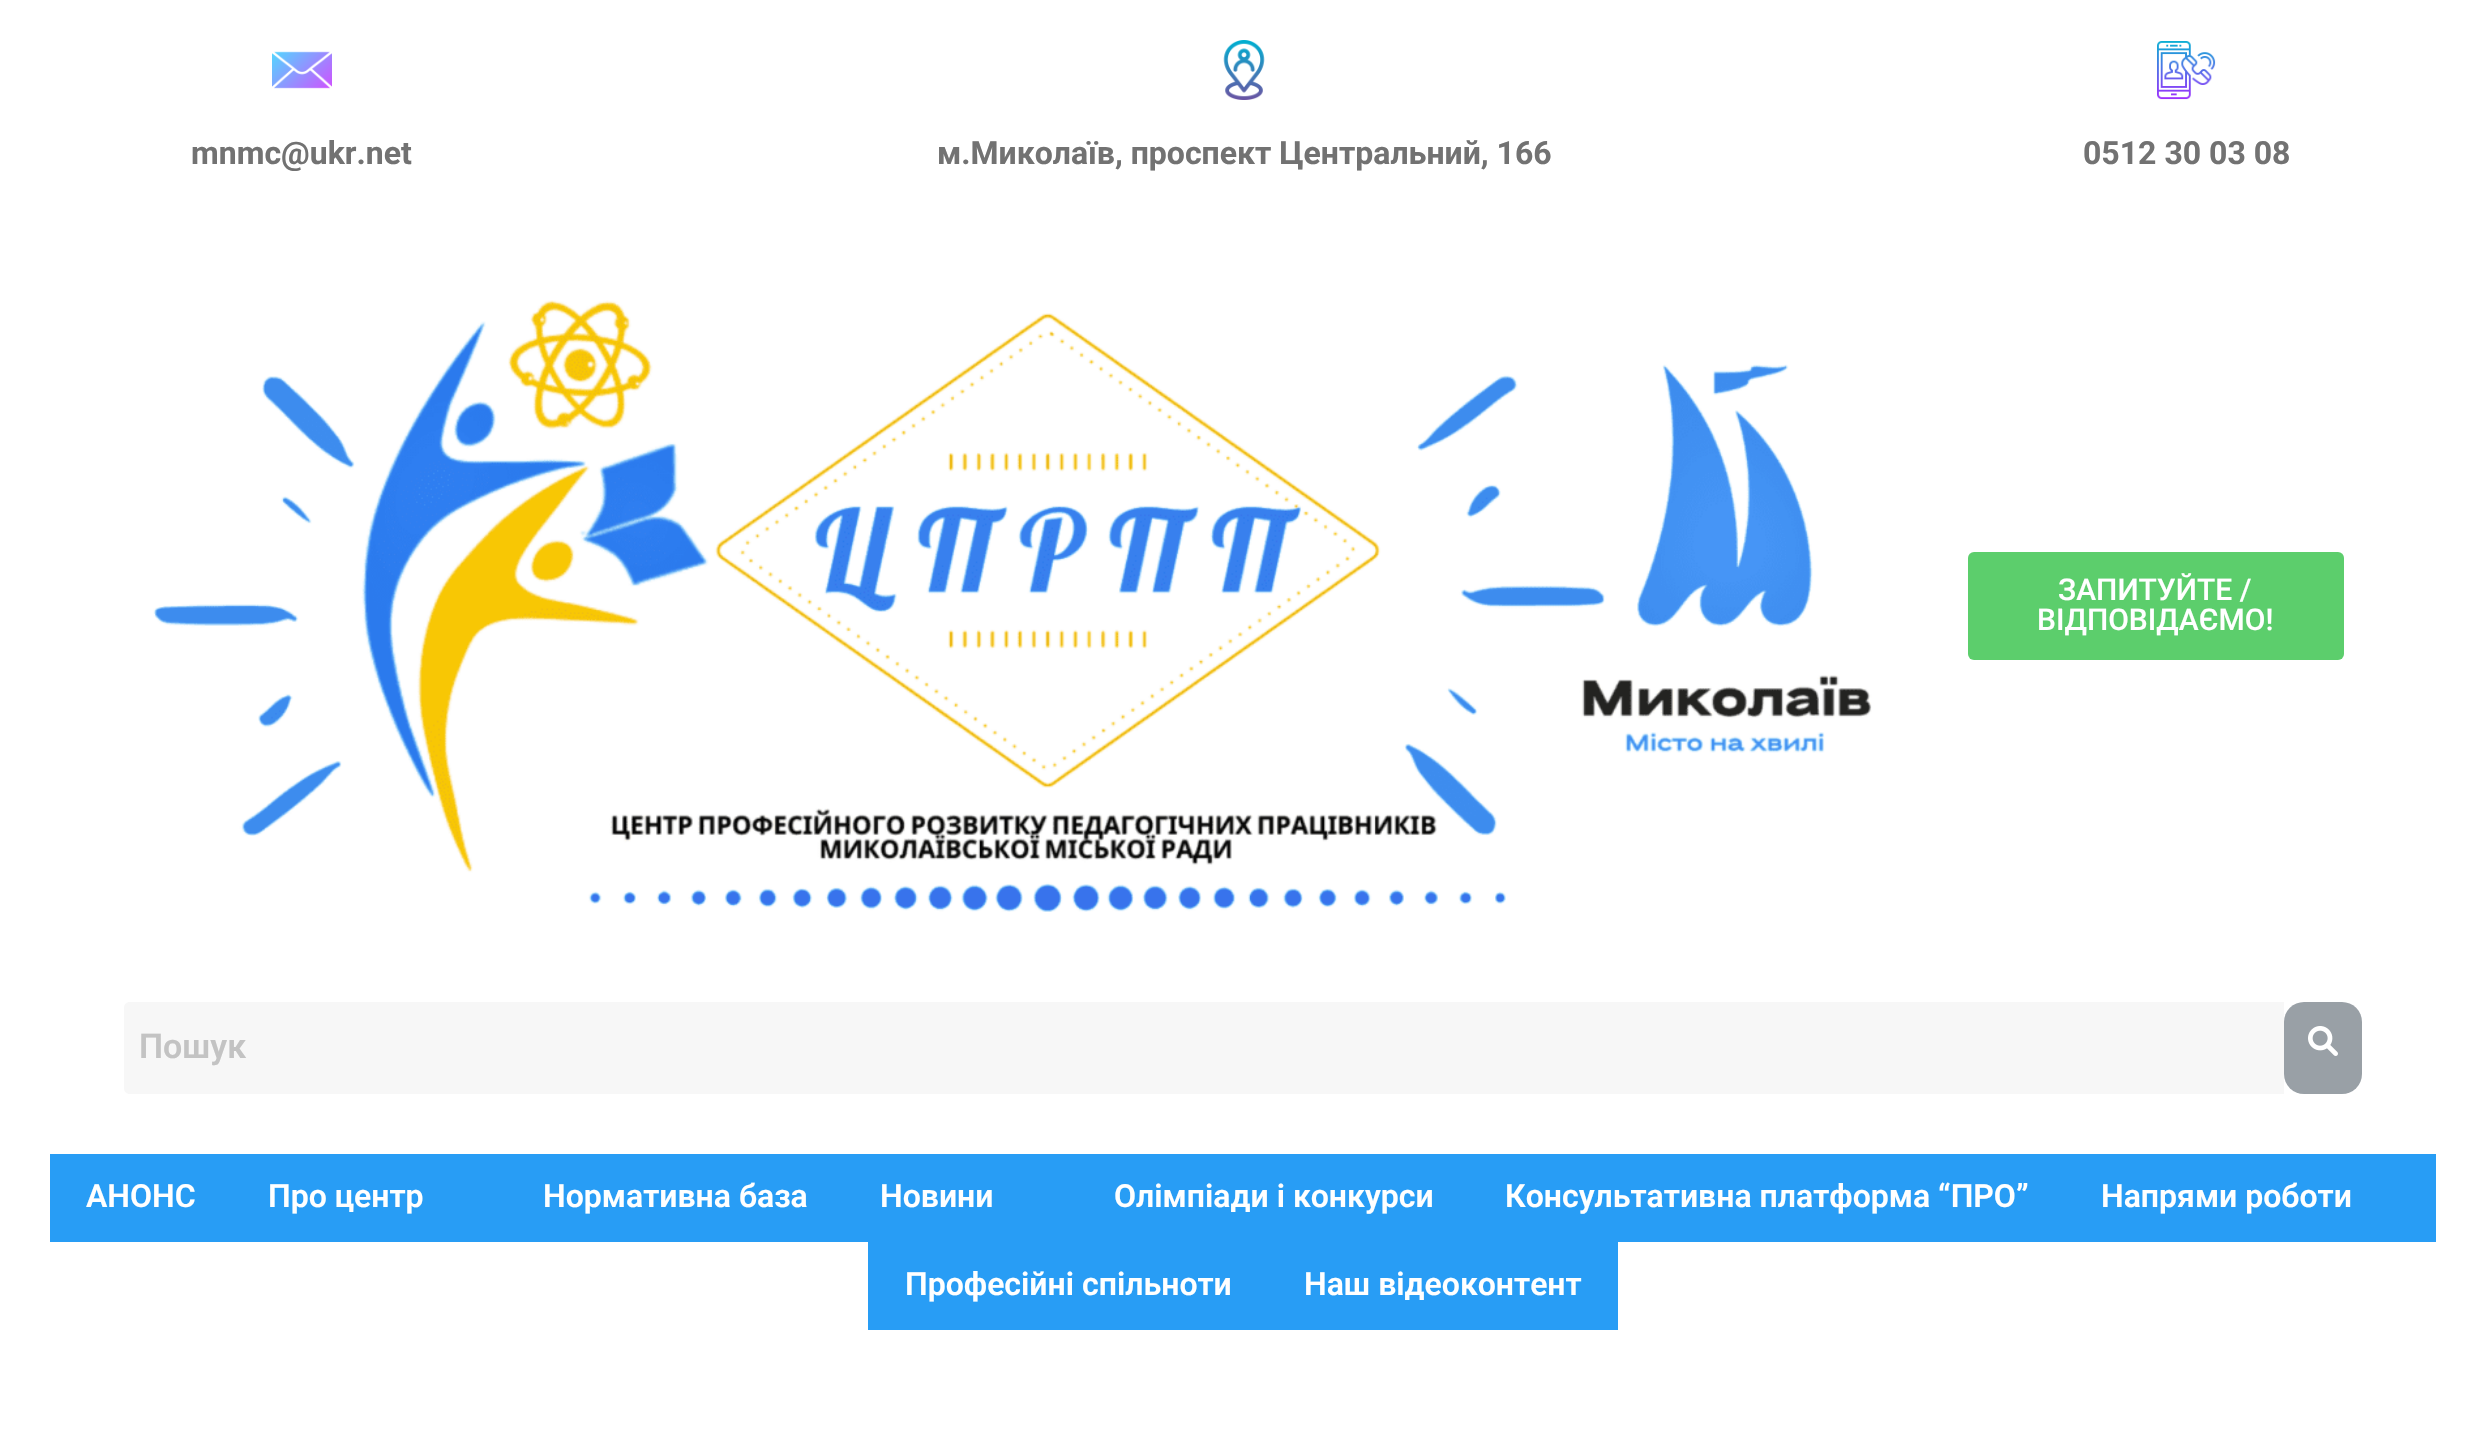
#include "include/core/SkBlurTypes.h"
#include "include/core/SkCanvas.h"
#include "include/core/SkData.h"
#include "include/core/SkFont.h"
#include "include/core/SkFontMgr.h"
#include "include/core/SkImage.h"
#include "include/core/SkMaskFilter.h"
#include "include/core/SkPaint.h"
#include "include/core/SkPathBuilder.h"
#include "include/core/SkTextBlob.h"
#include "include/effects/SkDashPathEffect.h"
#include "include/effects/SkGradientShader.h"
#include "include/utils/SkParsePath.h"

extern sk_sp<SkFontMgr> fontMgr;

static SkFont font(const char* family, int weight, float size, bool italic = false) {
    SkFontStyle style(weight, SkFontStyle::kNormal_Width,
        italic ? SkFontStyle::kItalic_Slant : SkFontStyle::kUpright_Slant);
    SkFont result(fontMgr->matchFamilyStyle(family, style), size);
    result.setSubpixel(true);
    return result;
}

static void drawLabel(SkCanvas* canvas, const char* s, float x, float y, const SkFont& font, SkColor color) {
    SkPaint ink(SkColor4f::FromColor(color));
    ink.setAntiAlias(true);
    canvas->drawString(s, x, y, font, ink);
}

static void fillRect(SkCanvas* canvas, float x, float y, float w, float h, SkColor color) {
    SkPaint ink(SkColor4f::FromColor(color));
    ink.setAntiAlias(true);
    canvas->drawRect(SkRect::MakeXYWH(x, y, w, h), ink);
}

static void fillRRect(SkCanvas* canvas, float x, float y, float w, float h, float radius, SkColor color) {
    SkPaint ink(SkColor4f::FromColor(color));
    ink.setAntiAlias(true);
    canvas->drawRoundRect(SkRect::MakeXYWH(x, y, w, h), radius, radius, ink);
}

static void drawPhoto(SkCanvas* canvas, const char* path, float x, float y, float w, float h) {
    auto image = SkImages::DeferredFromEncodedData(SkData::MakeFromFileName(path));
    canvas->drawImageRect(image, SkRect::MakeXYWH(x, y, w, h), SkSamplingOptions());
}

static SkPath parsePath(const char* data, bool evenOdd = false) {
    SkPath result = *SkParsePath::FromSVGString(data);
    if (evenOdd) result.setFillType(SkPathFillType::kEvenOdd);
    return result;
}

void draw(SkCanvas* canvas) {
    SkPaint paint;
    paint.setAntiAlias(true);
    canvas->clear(0xFFFFFFFF);
    drawPhoto(canvas, "assets/img1.png", 272, 51, 60, 38);
    SkFont font1 = font("Roboto", 700, 32);
    drawLabel(canvas, "mnmc@ukr.net", 191, 164, font1, 0xFF727272);
    drawPhoto(canvas, "assets/img2.png", 1223, 40, 42, 60);
    drawLabel(canvas, "м.Миколаїв, проспект Центральний, 166", 937, 164, font1, 0xFF727272);
    drawPhoto(canvas, "assets/img3.png", 2157, 41, 59, 59);
    drawLabel(canvas, "0512 30 03 08", 2083, 164, font1, 0xFF727272);
    drawPhoto(canvas, "assets/img4.png", 153, 300, 1719, 612);
    fillRRect(canvas, 1968, 552, 376, 108, 6, 0xFF5CCE6C);
    SkFont font2 = font("Roboto", 500, 30);
    drawLabel(canvas, "ЗАПИТУЙТЕ /", 2058, 600, font2, 0xFFFFFFFF);
    drawLabel(canvas, "ВІДПОВІДАЄМО!", 2037, 630, font2, 0xFFFFFFFF);
    paint.setColor(0xFFF7F7F7);
    canvas->drawPath(parsePath("M130 1002H2284V1094H130C126.5 1094 124 1091.5 124 1088V1008C124 1004.5 126.5 1002 130 1002Z"), paint);
    SkFont font3 = font("Roboto", 600, 34);
    drawLabel(canvas, "Пошук", 139, 1058, font3, 0xFFC3C3C3);
    fillRRect(canvas, 2284, 1002, 78, 92, 20, 0xFF99A0A6);
    drawPhoto(canvas, "assets/img5.png", 2308, 1026, 30, 30);
    fillRect(canvas, 50, 1154, 2386, 88, 0xFF289DF5);
    SkFont font4 = font("Roboto", 600, 32);
    drawLabel(canvas, "АНОНС", 86, 1207, font4, 0xFFFFFFFF);
    drawLabel(canvas, "Про центр", 268, 1207, font4, 0xFFFFFFFF);
    drawLabel(canvas, "Нормативна база", 543, 1207, font4, 0xFFFFFFFF);
    drawLabel(canvas, "Новини", 880, 1207, font4, 0xFFFFFFFF);
    drawLabel(canvas, "Олімпіади і конкурси", 1114, 1207, font4, 0xFFFFFFFF);
    drawLabel(canvas, "Консультативна платформа “ПРО”", 1505, 1207, font4, 0xFFFFFFFF);
    drawLabel(canvas, "Напрями роботи", 2101, 1207, font4, 0xFFFFFFFF);
    fillRect(canvas, 868, 1242, 750, 88, 0xFF289DF5);
    drawLabel(canvas, "Професійні спільноти", 905, 1295, font4, 0xFFFFFFFF);
    drawLabel(canvas, "Наш відеоконтент", 1304, 1295, font4, 0xFFFFFFFF);
}
